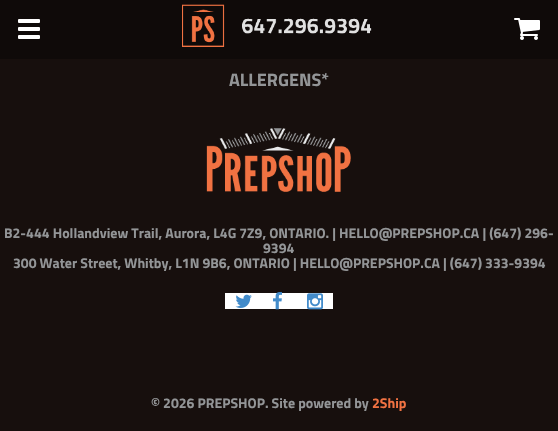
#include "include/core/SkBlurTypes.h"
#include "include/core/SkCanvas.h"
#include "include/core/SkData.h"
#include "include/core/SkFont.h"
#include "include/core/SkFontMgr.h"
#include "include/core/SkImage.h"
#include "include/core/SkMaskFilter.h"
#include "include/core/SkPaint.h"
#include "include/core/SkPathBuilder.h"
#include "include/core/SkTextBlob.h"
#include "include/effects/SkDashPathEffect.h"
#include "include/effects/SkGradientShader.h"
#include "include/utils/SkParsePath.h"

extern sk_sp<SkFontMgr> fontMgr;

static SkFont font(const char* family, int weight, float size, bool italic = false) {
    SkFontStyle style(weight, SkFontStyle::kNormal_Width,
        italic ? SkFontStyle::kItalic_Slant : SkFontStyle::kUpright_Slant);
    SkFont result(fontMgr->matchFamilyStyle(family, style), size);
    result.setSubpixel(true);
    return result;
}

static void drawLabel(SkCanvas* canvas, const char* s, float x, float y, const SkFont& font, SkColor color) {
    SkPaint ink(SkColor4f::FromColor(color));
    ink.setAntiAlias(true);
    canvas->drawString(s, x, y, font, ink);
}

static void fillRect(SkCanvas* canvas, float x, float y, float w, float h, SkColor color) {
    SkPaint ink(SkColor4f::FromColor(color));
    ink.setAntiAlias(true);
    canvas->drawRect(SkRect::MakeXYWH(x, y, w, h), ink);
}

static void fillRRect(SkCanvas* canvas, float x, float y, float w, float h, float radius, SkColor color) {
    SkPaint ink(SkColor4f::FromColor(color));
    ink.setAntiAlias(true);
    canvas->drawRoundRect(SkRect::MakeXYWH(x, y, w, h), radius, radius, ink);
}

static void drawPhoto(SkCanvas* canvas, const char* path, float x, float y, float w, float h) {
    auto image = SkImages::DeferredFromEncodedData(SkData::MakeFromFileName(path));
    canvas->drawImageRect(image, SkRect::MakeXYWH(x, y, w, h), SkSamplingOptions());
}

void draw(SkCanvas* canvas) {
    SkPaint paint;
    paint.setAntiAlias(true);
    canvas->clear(0xFF170F0D);
    fillRect(canvas, 0, 0, 558, 59, 0xFF0F0A09);
    fillRRect(canvas, 18, 19, 22, 4, 1, 0xFFFFFFFF);
    fillRRect(canvas, 18, 27, 22, 4, 1, 0xFFFFFFFF);
    fillRRect(canvas, 18, 35, 22, 4, 1, 0xFFFFFFFF);
    drawPhoto(canvas, "assets/img1.png", 182, 4, 190, 43);
    drawPhoto(canvas, "assets/img2.png", 514, 18, 26, 22);
    SkFont font1 = font("Titillium Web", 700, 18);
    drawLabel(canvas, "ALLERGENS*", 229, 86, font1, 0xFF939597);
    drawPhoto(canvas, "assets/img3.png", 206, 128, 145, 64);
    SkFont font2 = font("Titillium Web", 700, 14);
    drawLabel(canvas, "B2-444 Hollandview Trail, Aurora, L4G 7Z9, ONTARIO. | HELLO@PREPSHOP.CA | (647) 296-", 4, 238, font2, 0xFF939597);
    drawLabel(canvas, "9394", 263, 253, font2, 0xFF939597);
    drawLabel(canvas, "300 Water Street, Whitby, L1N 9B6, ONTARIO | HELLO@PREPSHOP.CA | (647) 333-9394", 13, 268, font2, 0xFF939597);
    fillRect(canvas, 225, 293, 108, 16, 0xFFFFFFFF);
    drawPhoto(canvas, "assets/img4.png", 273, 292, 9, 18);
    drawPhoto(canvas, "assets/img5.png", 235, 294, 17, 14);
    drawPhoto(canvas, "assets/img6.png", 307, 293, 16, 17);
    drawLabel(canvas, "© 2026 PREPSHOP. Site powered by", 151, 408, font2, 0xFF939597);
    drawLabel(canvas, "2Ship", 372, 408, font2, 0xFFF17242);
}
